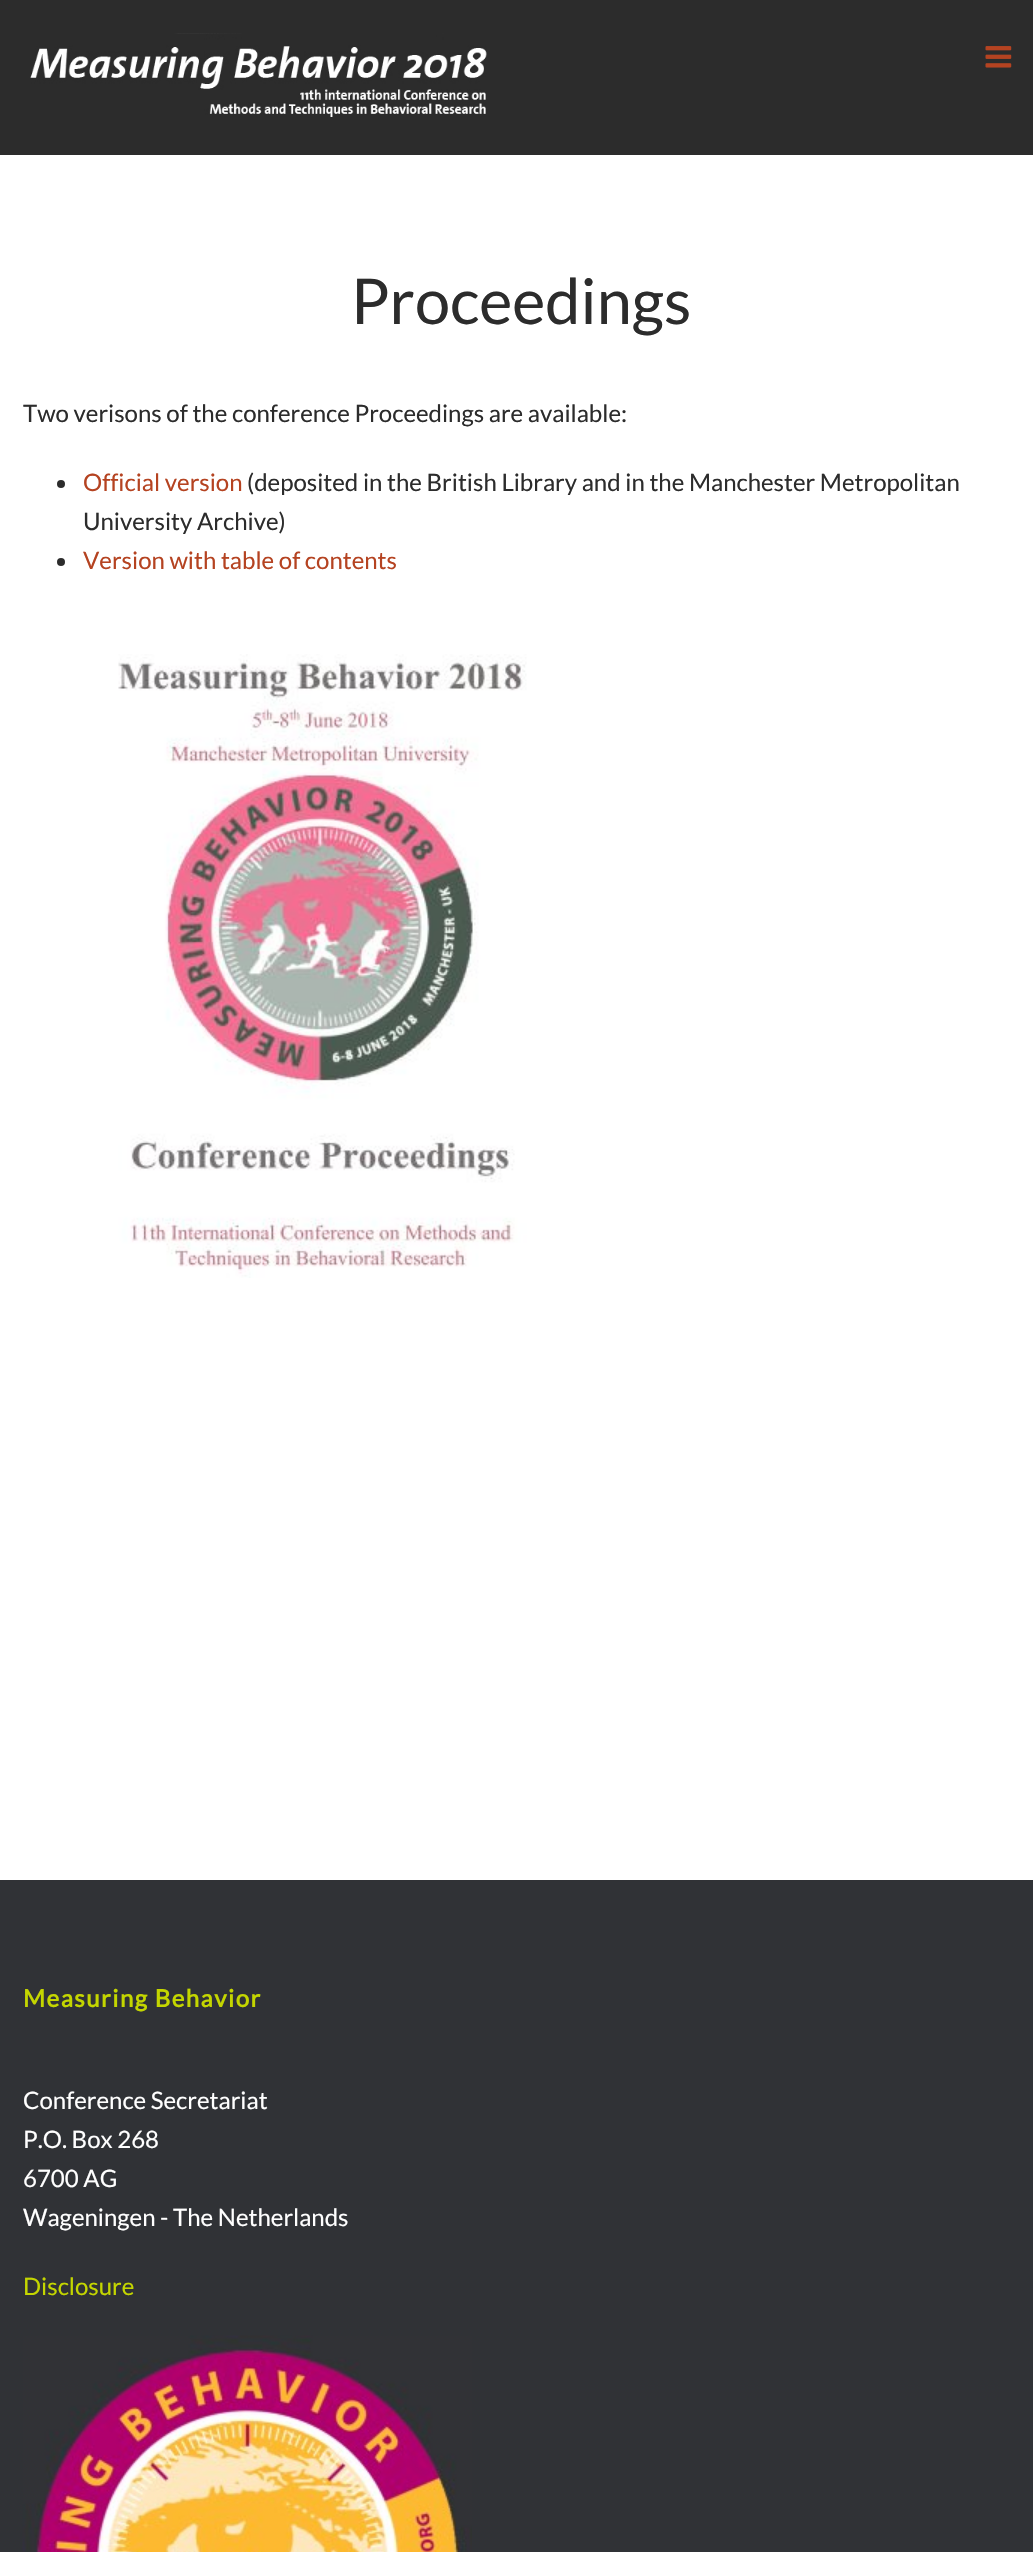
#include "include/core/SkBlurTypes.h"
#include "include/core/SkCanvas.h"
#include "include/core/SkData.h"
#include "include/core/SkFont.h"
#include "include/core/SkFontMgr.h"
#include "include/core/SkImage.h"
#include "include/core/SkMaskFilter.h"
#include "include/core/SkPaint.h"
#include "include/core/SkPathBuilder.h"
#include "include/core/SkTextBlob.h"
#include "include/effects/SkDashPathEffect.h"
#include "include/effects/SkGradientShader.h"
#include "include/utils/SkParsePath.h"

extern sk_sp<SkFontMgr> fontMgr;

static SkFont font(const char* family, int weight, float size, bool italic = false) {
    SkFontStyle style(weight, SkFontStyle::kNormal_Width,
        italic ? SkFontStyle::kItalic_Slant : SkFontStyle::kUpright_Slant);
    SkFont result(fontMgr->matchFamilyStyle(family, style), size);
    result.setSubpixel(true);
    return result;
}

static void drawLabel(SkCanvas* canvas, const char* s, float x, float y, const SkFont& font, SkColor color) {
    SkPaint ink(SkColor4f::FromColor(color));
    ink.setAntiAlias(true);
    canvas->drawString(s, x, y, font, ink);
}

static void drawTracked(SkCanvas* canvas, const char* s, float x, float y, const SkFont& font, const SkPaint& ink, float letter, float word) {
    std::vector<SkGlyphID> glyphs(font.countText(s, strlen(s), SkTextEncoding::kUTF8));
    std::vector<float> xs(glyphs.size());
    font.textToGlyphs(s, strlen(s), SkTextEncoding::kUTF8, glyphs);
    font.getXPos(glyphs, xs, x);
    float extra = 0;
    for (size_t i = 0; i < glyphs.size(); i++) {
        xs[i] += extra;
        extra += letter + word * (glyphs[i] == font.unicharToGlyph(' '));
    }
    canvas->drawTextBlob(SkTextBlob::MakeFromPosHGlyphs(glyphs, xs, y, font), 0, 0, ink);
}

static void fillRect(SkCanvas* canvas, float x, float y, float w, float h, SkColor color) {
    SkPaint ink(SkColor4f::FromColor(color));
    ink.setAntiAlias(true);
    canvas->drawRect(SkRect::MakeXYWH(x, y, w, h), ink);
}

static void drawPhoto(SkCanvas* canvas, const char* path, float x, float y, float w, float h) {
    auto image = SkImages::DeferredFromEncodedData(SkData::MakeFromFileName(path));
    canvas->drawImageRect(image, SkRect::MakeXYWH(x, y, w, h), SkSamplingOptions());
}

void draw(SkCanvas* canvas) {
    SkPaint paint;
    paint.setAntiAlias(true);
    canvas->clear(0xFFFFFFFF);
    fillRect(canvas, 0, 0, 1033, 155, 0xFF2C2C2C);
    drawPhoto(canvas, "assets/img1.png", 30, 33, 457, 84);
    drawPhoto(canvas, "assets/img2.png", 985, 46, 27, 22);
    SkFont font1 = font("Lato", 400, 63);
    drawLabel(canvas, "Proceedings", 351, 324, font1, 0xFF2C2C2C);
    SkFont font2 = font("Lato", 400, 24);
    drawLabel(canvas, "Two verisons of the conference Proceedings are available:", 23, 422, font2, 0xFF2C2C2C);
    paint.setColor(0xFF2C2C2C);
    canvas->drawCircle(61, 484, 4, paint);
    drawLabel(canvas, "Official version", 83, 491, font2, 0xFFB54321);
    drawLabel(canvas, "(deposited in the British Library and in the Manchester Metropolitan", 247, 491, font2, 0xFF2C2C2C);
    drawLabel(canvas, "University Archive)", 83, 530, font2, 0xFF2C2C2C);
    canvas->drawCircle(61, 562, 4, paint);
    drawLabel(canvas, "Version with table of contents", 83, 569, font2, 0xFFB54321);
    drawPhoto(canvas, "assets/img3.png", 118, 654, 409, 624);
    fillRect(canvas, 0, 1880, 1033, 672, 0xFF303236);
    SkFont font3 = font("Lato", 700, 24);
    paint.setColor(0xFFC4D600);
    drawTracked(canvas, "Measuring Behavior", 23, 2007, font3, paint, 1.5f, 0);
    drawLabel(canvas, "Conference Secretariat", 23, 2109, font2, 0xFFFFFFFF);
    drawLabel(canvas, "P.O. Box 268", 23, 2148, font2, 0xFFFFFFFF);
    drawLabel(canvas, "6700 AG", 23, 2187, font2, 0xFFFFFFFF);
    drawLabel(canvas, "Wageningen - The Netherlands", 23, 2226, font2, 0xFFFFFFFF);
    drawLabel(canvas, "Disclosure", 23, 2295, font2, 0xFFC4D600);
    drawPhoto(canvas, "assets/img4.png", 22, 2335, 450, 217);
}
